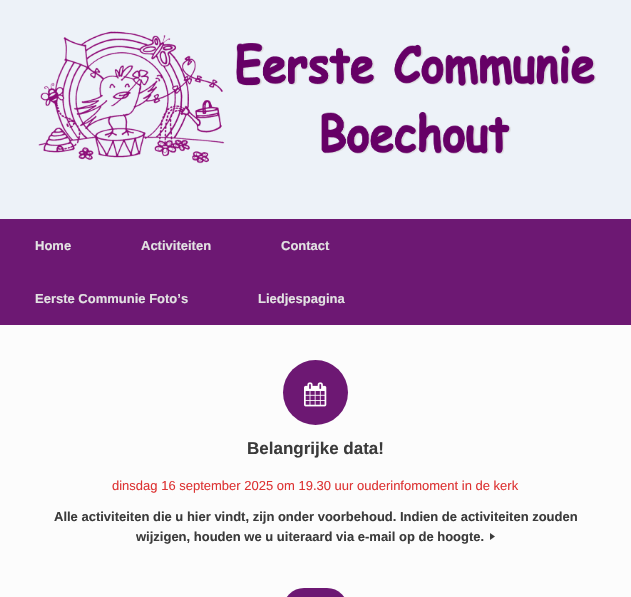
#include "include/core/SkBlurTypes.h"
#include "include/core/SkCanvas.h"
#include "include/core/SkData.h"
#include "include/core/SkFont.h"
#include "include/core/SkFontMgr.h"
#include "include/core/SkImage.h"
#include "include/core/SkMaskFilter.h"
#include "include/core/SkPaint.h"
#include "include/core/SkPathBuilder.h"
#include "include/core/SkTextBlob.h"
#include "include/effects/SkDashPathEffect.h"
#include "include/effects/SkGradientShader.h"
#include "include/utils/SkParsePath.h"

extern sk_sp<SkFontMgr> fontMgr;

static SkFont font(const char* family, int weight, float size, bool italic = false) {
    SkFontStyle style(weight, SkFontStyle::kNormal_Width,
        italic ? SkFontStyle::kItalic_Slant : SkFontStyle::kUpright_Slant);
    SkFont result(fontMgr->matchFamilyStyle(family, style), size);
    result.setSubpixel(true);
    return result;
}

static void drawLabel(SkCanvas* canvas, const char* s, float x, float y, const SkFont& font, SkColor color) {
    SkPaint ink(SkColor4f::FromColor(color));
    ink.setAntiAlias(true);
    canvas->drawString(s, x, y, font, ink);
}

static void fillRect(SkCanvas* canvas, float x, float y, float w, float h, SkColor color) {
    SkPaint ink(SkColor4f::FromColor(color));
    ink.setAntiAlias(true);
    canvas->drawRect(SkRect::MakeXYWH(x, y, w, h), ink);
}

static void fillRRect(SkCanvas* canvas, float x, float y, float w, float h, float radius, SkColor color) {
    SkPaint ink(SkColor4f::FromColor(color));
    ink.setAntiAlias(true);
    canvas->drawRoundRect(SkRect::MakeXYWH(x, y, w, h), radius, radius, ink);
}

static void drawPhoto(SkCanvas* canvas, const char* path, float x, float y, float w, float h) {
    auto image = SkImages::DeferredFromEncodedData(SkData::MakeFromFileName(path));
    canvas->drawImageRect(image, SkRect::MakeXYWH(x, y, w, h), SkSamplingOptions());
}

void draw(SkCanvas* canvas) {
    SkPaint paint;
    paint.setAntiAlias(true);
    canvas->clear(0xFFEDF2F8);
    drawPhoto(canvas, "assets/img1.png", 38, 31, 558, 133);
    fillRect(canvas, 0, 219, 631, 106, 0xFF6D1873);
    SkFont font1 = font("Liberation Sans", 700, 13);
    drawLabel(canvas, "Home", 35, 250, font1, 0xFFE2E2E2);
    drawLabel(canvas, "Activiteiten", 141, 250, font1, 0xFFE2E2E2);
    drawLabel(canvas, "Contact", 281, 250, font1, 0xFFE2E2E2);
    drawLabel(canvas, "Eerste Communie Foto’s", 35, 303, font1, 0xFFE2E2E2);
    drawLabel(canvas, "Liedjespagina", 258, 303, font1, 0xFFE2E2E2);
    fillRect(canvas, 0, 325, 631, 272, 0xFFFCFCFC);
    paint.setColor(0xFF6D1873);
    canvas->drawCircle(315.5f, 392.5f, 32.5f, paint);
    drawPhoto(canvas, "assets/img2.png", 304, 382, 23, 25);
    SkFont font2 = font("Liberation Sans", 700, 17);
    drawLabel(canvas, "Belangrijke data!", 247, 454, font2, 0xFF3B3B3B);
    SkFont font3 = font("Liberation Sans", 400, 13);
    drawLabel(canvas, "dinsdag 16 september 2025 om 19.30 uur ouderinfomoment in de kerk", 112, 490, font3, 0xFFDD3333);
    drawLabel(canvas, "Alle activiteiten die u hier vindt, zijn onder voorbehoud. Indien de activiteiten zouden", 54, 521, font1, 0xFF3B3B3B);
    drawLabel(canvas, "wijzigen, houden we u uiteraard via e-mail op de hoogte.", 136, 541, font1, 0xFF3B3B3B);
    drawPhoto(canvas, "assets/img3.png", 490, 533, 5, 7);
    fillRRect(canvas, 283, 588, 65, 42, 32.5f, 0xFF6D1873);
}
